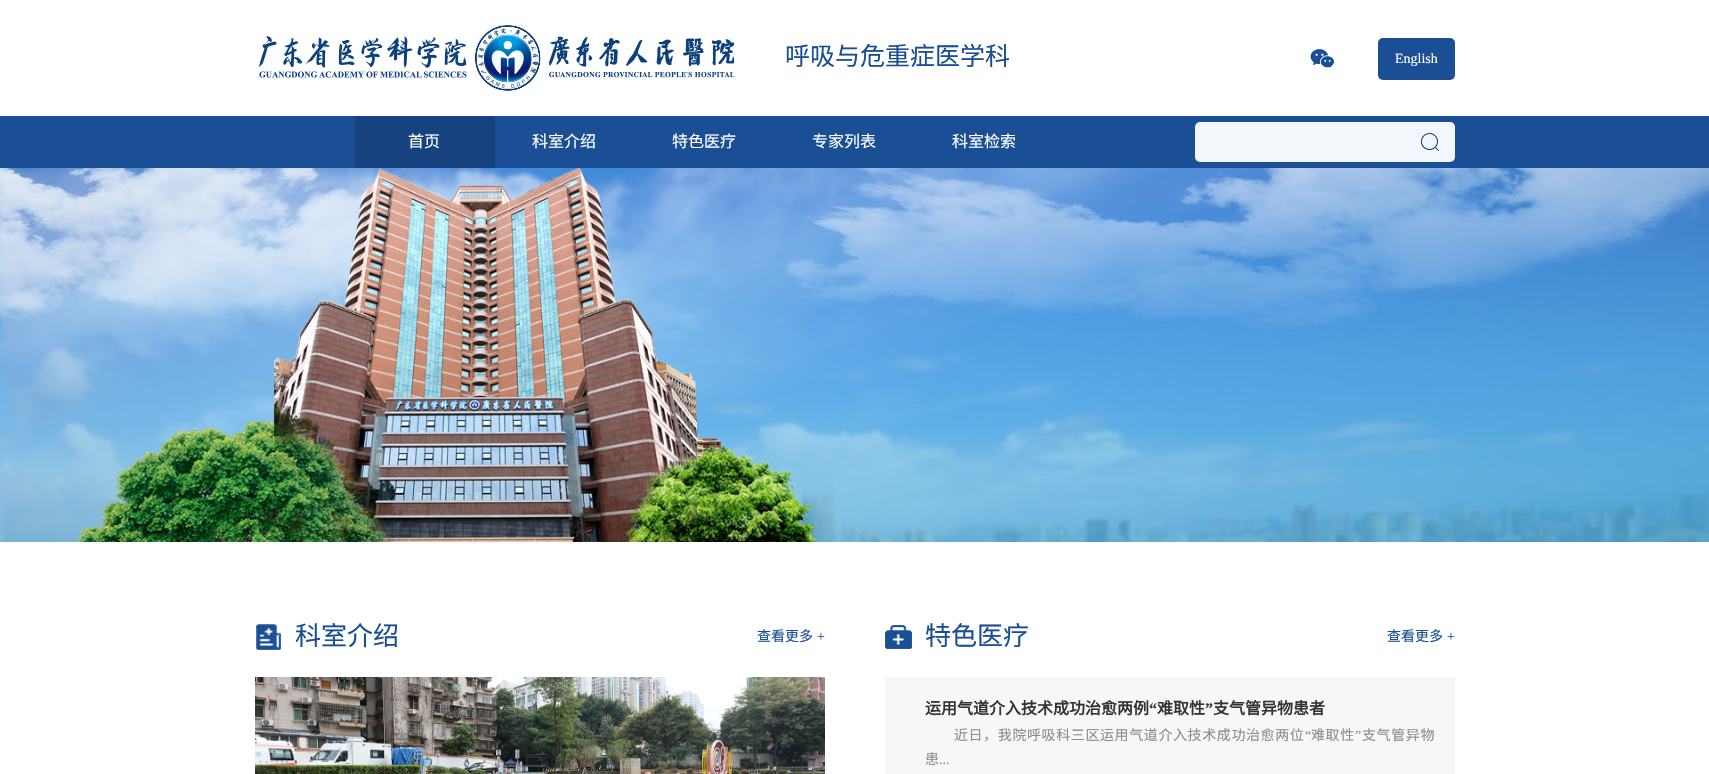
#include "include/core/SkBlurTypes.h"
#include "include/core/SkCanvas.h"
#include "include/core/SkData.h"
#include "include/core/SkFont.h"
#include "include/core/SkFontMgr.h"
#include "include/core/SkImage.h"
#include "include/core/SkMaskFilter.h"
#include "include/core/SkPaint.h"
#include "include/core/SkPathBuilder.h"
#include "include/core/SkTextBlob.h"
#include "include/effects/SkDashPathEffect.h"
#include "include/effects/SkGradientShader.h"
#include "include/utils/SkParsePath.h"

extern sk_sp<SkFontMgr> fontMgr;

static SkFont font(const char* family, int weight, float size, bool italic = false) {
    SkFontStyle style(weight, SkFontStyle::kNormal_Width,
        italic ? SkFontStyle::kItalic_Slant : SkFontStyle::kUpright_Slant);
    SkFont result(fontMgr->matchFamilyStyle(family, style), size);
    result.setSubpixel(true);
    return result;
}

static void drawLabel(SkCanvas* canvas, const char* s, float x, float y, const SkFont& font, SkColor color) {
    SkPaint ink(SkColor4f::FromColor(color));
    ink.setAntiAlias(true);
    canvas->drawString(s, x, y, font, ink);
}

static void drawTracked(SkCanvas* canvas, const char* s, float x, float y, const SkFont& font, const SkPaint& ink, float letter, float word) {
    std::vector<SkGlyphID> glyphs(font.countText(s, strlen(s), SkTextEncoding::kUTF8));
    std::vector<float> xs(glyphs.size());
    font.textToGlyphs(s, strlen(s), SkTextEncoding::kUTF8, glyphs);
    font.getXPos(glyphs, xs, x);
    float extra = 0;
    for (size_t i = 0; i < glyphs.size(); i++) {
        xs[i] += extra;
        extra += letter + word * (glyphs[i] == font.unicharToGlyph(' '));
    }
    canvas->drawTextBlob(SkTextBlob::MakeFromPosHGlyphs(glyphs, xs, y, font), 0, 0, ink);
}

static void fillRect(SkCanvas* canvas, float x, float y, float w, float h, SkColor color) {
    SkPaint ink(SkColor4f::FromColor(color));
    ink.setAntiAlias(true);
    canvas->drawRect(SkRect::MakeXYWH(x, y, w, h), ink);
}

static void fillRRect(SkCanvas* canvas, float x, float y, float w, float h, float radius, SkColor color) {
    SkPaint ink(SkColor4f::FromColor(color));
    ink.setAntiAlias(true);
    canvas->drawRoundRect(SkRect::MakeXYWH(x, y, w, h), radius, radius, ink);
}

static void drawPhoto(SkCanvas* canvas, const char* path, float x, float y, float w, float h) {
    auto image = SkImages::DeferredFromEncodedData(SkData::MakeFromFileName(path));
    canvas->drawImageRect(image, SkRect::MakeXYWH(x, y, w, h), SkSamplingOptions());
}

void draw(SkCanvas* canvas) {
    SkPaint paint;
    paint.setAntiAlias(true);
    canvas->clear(0xFFFFFFFF);
    drawPhoto(canvas, "assets/img1.png", 258, 25, 477, 66);
    SkFont font1 = font("Noto Sans CJK SC", 400, 25);
    drawLabel(canvas, "呼吸与危重症医学科", 785, 65, font1, 0xFF1A4E95);
    drawPhoto(canvas, "assets/img2.png", 1310, 49, 24, 19);
    fillRRect(canvas, 1378, 38, 77, 42, 5, 0xFF1A4E95);
    SkFont font2 = font("Liberation Serif", 400, 14);
    drawLabel(canvas, "English", 1395, 63, font2, 0xFFFFFFFF);
    fillRect(canvas, 0, 116, 1709, 52, 0xFF1A4E95);
    fillRect(canvas, 355, 116, 140, 52, 0xFF16427F);
    SkFont font3 = font("Noto Sans CJK SC", 400, 16);
    drawLabel(canvas, "首页", 408, 147, font3, 0xFFFFFFFF);
    drawLabel(canvas, "科室介绍", 532, 147, font3, 0xFFFFFFFF);
    drawLabel(canvas, "特色医疗", 672, 147, font3, 0xFFFFFFFF);
    drawLabel(canvas, "专家列表", 812, 147, font3, 0xFFFFFFFF);
    drawLabel(canvas, "科室检索", 952, 147, font3, 0xFFFFFFFF);
    fillRRect(canvas, 1195, 122, 260, 40, 5, 0xFFF3F6FA);
    drawPhoto(canvas, "assets/img3.png", 1421, 133, 18, 18);
    drawPhoto(canvas, "assets/img4.png", 0, 168, 1709, 374);
    drawPhoto(canvas, "assets/img5.png", 256, 624, 25, 26);
    SkFont font4 = font("Noto Sans CJK SC", 400, 26);
    drawLabel(canvas, "科室介绍", 295, 645, font4, 0xFF1A4E95);
    SkFont font5 = font("Noto Sans CJK SC", 400, 14);
    drawLabel(canvas, "查看更多", 757, 641, font5, 0xFF1A4E95);
    drawLabel(canvas, "+", 817, 641, font2, 0xFF1A4E95);
    drawPhoto(canvas, "assets/img6.png", 255, 677, 570, 97);
    drawPhoto(canvas, "assets/img7.png", 885, 625, 27, 24);
    drawLabel(canvas, "特色医疗", 925, 645, font4, 0xFF1A4E95);
    drawLabel(canvas, "查看更多", 1387, 641, font5, 0xFF1A4E95);
    drawLabel(canvas, "+", 1447, 641, font2, 0xFF1A4E95);
    fillRect(canvas, 885, 677, 570, 97, 0xFFF7F7F7);
    SkFont font6 = font("Noto Sans CJK SC", 700, 16);
    drawLabel(canvas, "运用气道介入技术成功治愈两例", 925, 714, font6, 0xFF333333);
    SkFont font7 = font("Liberation Serif", 700, 16);
    drawLabel(canvas, "“", 1149, 714, font7, 0xFF333333);
    drawLabel(canvas, "难取性", 1157, 714, font6, 0xFF333333);
    drawLabel(canvas, "”", 1205, 714, font7, 0xFF333333);
    drawLabel(canvas, "支气管异物患者", 1213, 714, font6, 0xFF333333);
    paint.setColor(0xFF8C8C8C);
    drawTracked(canvas, "近日，我院呼吸科三区运用气道介入技术成功治愈两位", 954, 740, font5, paint, 0.6f, 0);
    drawTracked(canvas, "“", 1305, 740, font2, paint, 0.6f, 0);
    drawTracked(canvas, "难取性", 1311, 740, font5, paint, 0.6f, 0);
    drawTracked(canvas, "”", 1355, 740, font2, paint, 0.6f, 0);
    drawTracked(canvas, "支气管异物", 1362, 740, font5, paint, 0.6f, 0);
    drawLabel(canvas, "患", 925, 764, font5, 0xFF8C8C8C);
    drawLabel(canvas, "...", 939, 764, font2, 0xFF8C8C8C);
}
